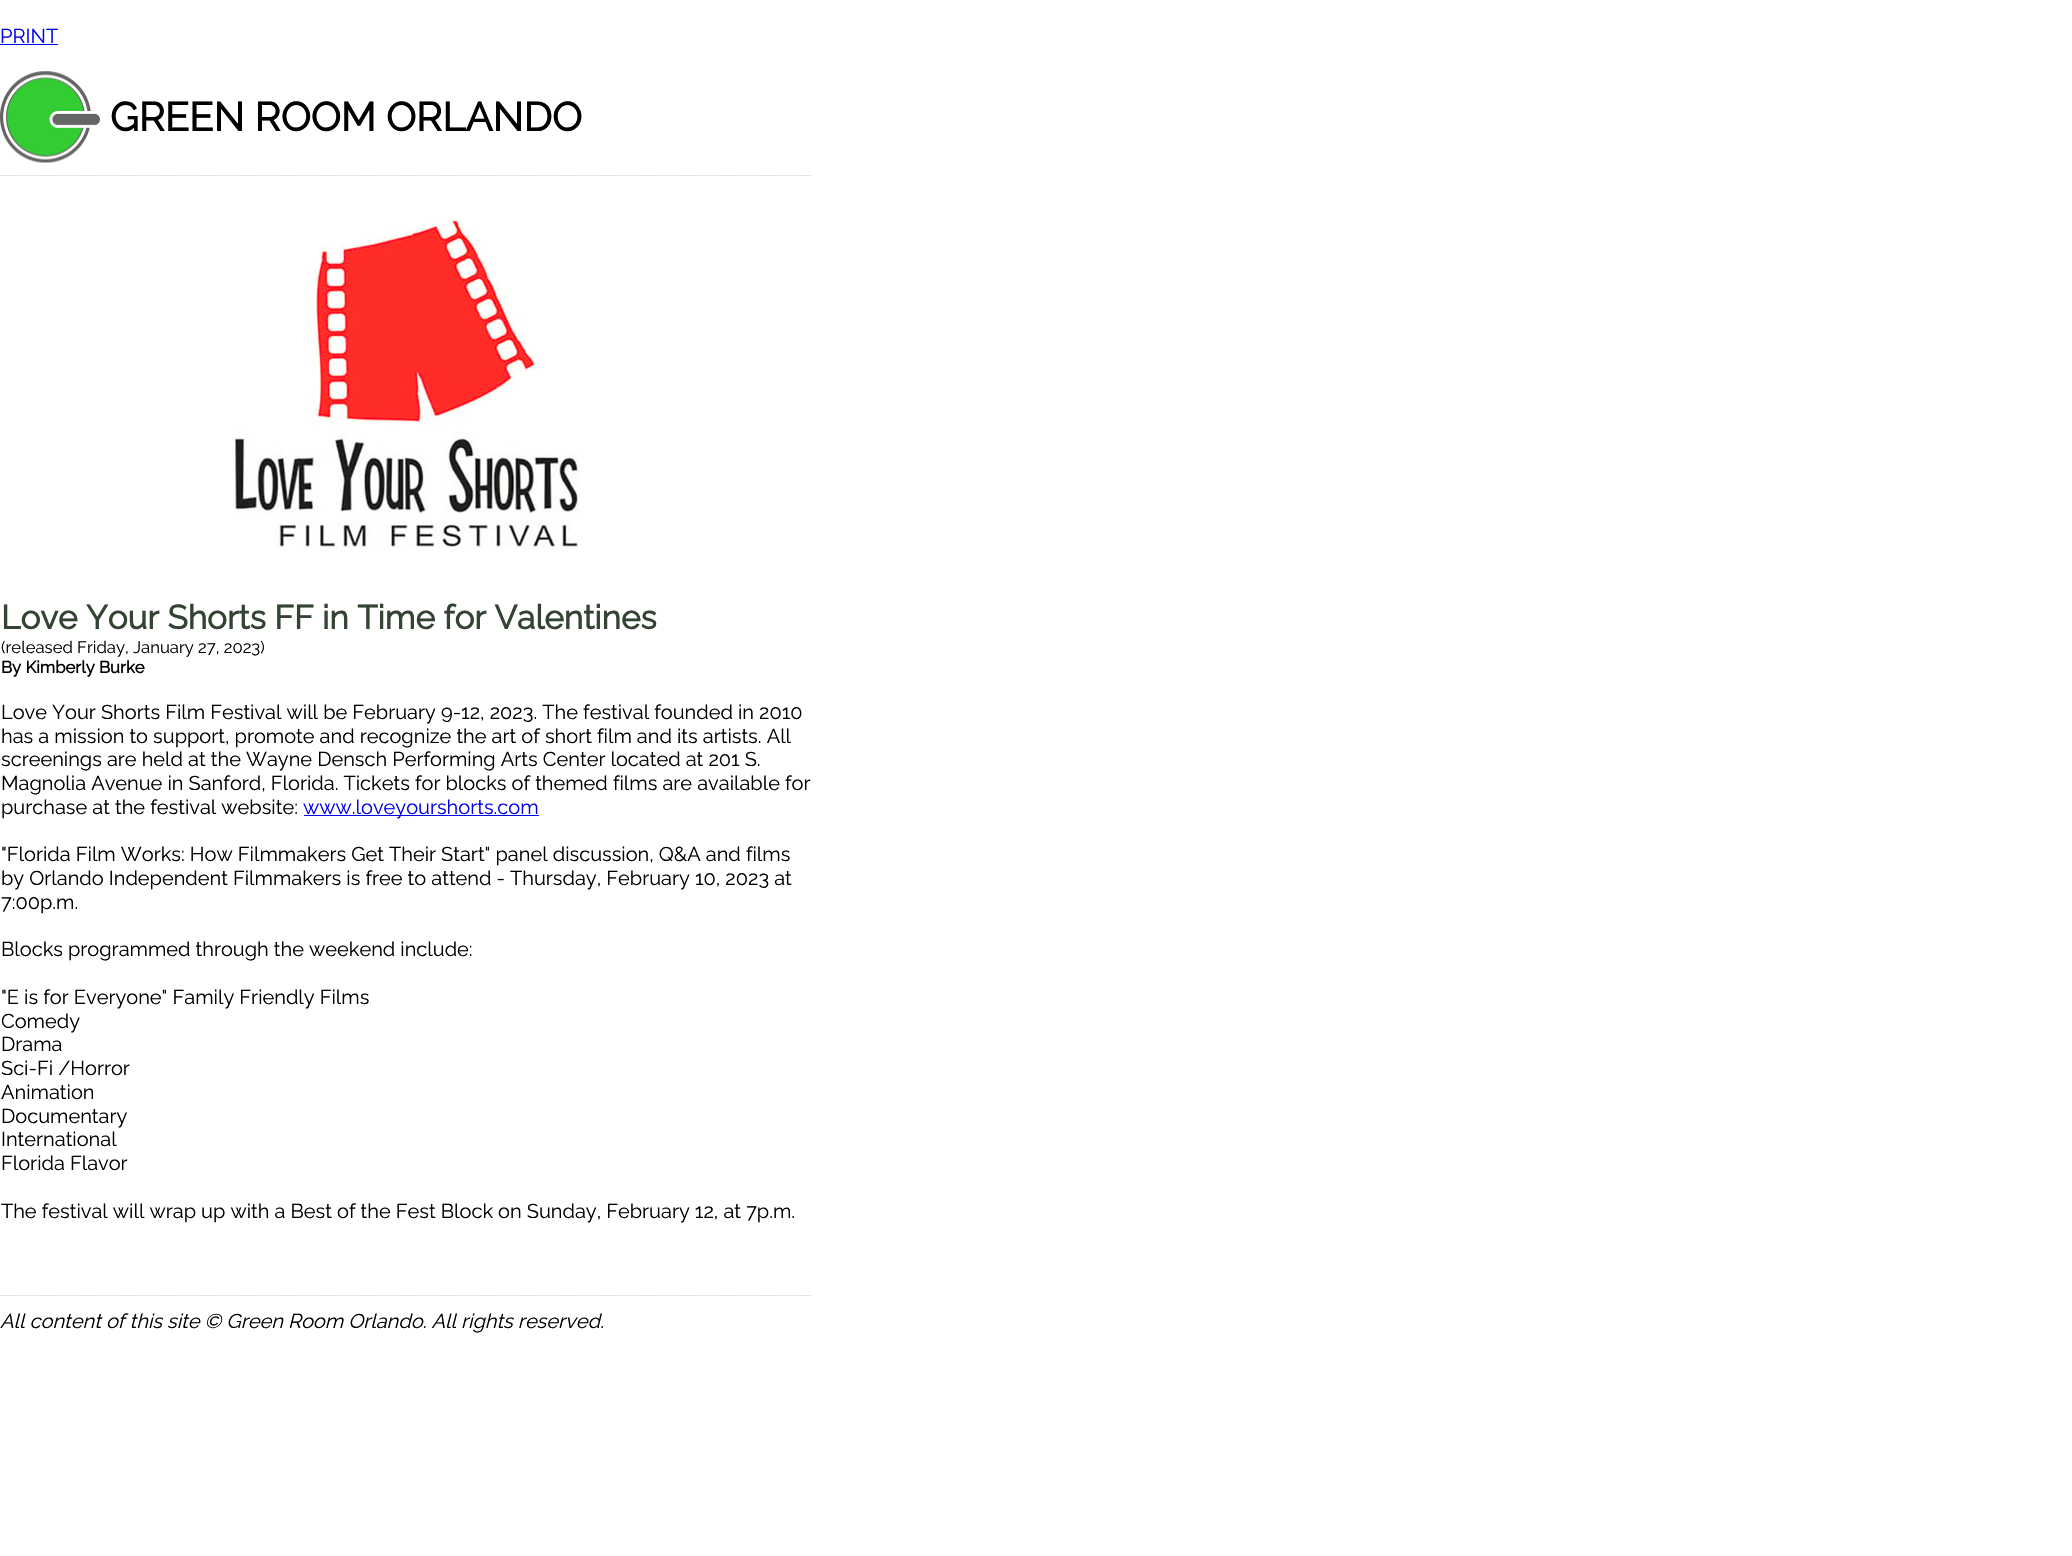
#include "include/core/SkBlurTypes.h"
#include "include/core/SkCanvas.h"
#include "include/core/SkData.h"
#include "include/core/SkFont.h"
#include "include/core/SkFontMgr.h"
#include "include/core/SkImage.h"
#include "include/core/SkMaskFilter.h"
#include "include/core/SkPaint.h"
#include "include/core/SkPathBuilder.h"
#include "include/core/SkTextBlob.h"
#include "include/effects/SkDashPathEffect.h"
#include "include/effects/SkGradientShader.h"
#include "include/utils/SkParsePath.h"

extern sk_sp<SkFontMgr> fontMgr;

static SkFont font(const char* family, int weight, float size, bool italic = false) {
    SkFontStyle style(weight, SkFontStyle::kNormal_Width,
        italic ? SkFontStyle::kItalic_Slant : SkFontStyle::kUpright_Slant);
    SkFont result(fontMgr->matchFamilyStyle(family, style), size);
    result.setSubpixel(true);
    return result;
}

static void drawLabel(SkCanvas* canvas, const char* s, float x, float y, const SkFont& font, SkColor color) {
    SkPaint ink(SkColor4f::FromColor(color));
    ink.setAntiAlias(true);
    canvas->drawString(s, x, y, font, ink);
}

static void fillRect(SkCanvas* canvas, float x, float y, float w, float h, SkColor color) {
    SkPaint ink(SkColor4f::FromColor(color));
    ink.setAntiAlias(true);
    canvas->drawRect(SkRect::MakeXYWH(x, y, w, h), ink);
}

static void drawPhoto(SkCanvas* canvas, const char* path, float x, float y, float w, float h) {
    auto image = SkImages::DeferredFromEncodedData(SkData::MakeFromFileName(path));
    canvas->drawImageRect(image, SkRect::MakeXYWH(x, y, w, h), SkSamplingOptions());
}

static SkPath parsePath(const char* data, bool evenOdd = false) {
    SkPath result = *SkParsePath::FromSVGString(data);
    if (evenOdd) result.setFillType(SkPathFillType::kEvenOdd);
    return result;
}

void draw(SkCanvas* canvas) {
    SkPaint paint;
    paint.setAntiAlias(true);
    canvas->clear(0xFFFFFFFF);
    SkFont font1 = font("Raleway", 100, 20);
    drawLabel(canvas, "PRINT", 0, 43, font1, 0xFF0000EE);
    fillRect(canvas, 0, 44, 58, 1, 0xFF0000EE);
    drawPhoto(canvas, "assets/img1.png", 0, 71, 100, 92);
    SkFont font2 = font("Raleway", 700, 40);
    drawLabel(canvas, "GREEN ROOM ORLANDO", 110, 131, font2, 0xFF000000);
    paint.setStroke(true);
    paint.setStrokeWidth(1.2f);
    paint.setColor(0xFFCCCCCC);
    paint.setPathEffect(SkDashPathEffect::Make({{1.25f, 1.25f}}, 0));
    canvas->drawPath(parsePath("M0 175.5H812.5"), paint);
    paint.setPathEffect(nullptr);
    paint.setPathEffect(SkDashPathEffect::Make({{1.25f, 1.25f}}, 0));
    canvas->drawPath(parsePath("M0 1295.5H812.5"), paint);
    paint.setPathEffect(nullptr);
    drawPhoto(canvas, "assets/img2.png", 232, 217, 348, 332);
    SkFont font3 = font("Raleway", 700, 33.3f);
    drawLabel(canvas, "Love Your Shorts FF in Time for Valentines", 1, 629, font3, 0xFF334433);
    SkFont font4 = font("Raleway", 100, 16.7f);
    drawLabel(canvas, "(released Friday, January 27, 2023)", 1, 653, font4, 0xFF000000);
    SkFont font5 = font("Raleway", 700, 16.7f);
    drawLabel(canvas, "By Kimberly Burke", 1, 673, font5, 0xFF000000);
    drawLabel(canvas, "Love Your Shorts Film Festival will be February 9-12, 2023. The festival founded in 2010", 1, 719, font1, 0xFF000000);
    drawLabel(canvas, "has a mission to support, promote and recognize the art of short film and its artists. All", 1, 743, font1, 0xFF000000);
    drawLabel(canvas, "screenings are held at the Wayne Densch Performing Arts Center located at 201 S.", 1, 766, font1, 0xFF000000);
    drawLabel(canvas, "Magnolia Avenue in Sanford, Florida. Tickets for blocks of themed films are available for", 1, 790, font1, 0xFF000000);
    drawLabel(canvas, "purchase at the festival website:", 1, 814, font1, 0xFF000000);
    fillRect(canvas, 304, 815, 235, 1, 0xFF0000EE);
    drawLabel(canvas, "www.loveyourshorts.com", 303, 814, font1, 0xFF0000EE);
    drawLabel(canvas, "\"Florida Film Works: How Filmmakers Get Their Start\" panel discussion, Q&A and films", 1, 861, font1, 0xFF000000);
    drawLabel(canvas, "by Orlando Independent Filmmakers is free to attend - Thursday, February 10, 2023 at", 1, 885, font1, 0xFF000000);
    drawLabel(canvas, "7:00p.m.", 1, 909, font1, 0xFF000000);
    drawLabel(canvas, "Blocks programmed through the weekend include:", 1, 956, font1, 0xFF000000);
    drawLabel(canvas, "\"E is for Everyone\" Family Friendly Films", 1, 1004, font1, 0xFF000000);
    drawLabel(canvas, "Comedy", 1, 1028, font1, 0xFF000000);
    drawLabel(canvas, "Drama", 1, 1051, font1, 0xFF000000);
    drawLabel(canvas, "Sci-Fi /Horror", 1, 1075, font1, 0xFF000000);
    drawLabel(canvas, "Animation", 1, 1099, font1, 0xFF000000);
    drawLabel(canvas, "Documentary", 1, 1123, font1, 0xFF000000);
    drawLabel(canvas, "International", 1, 1146, font1, 0xFF000000);
    drawLabel(canvas, "Florida Flavor", 1, 1170, font1, 0xFF000000);
    drawLabel(canvas, "The festival will wrap up with a Best of the Fest Block on Sunday, February 12, at 7p.m.", 1, 1218, font1, 0xFF000000);
    SkFont font6 = font("Raleway", 100, 20, true);
    drawLabel(canvas, "All content of this site © Green Room Orlando. All rights reserved.", 0, 1328, font6, 0xFF000000);
}
